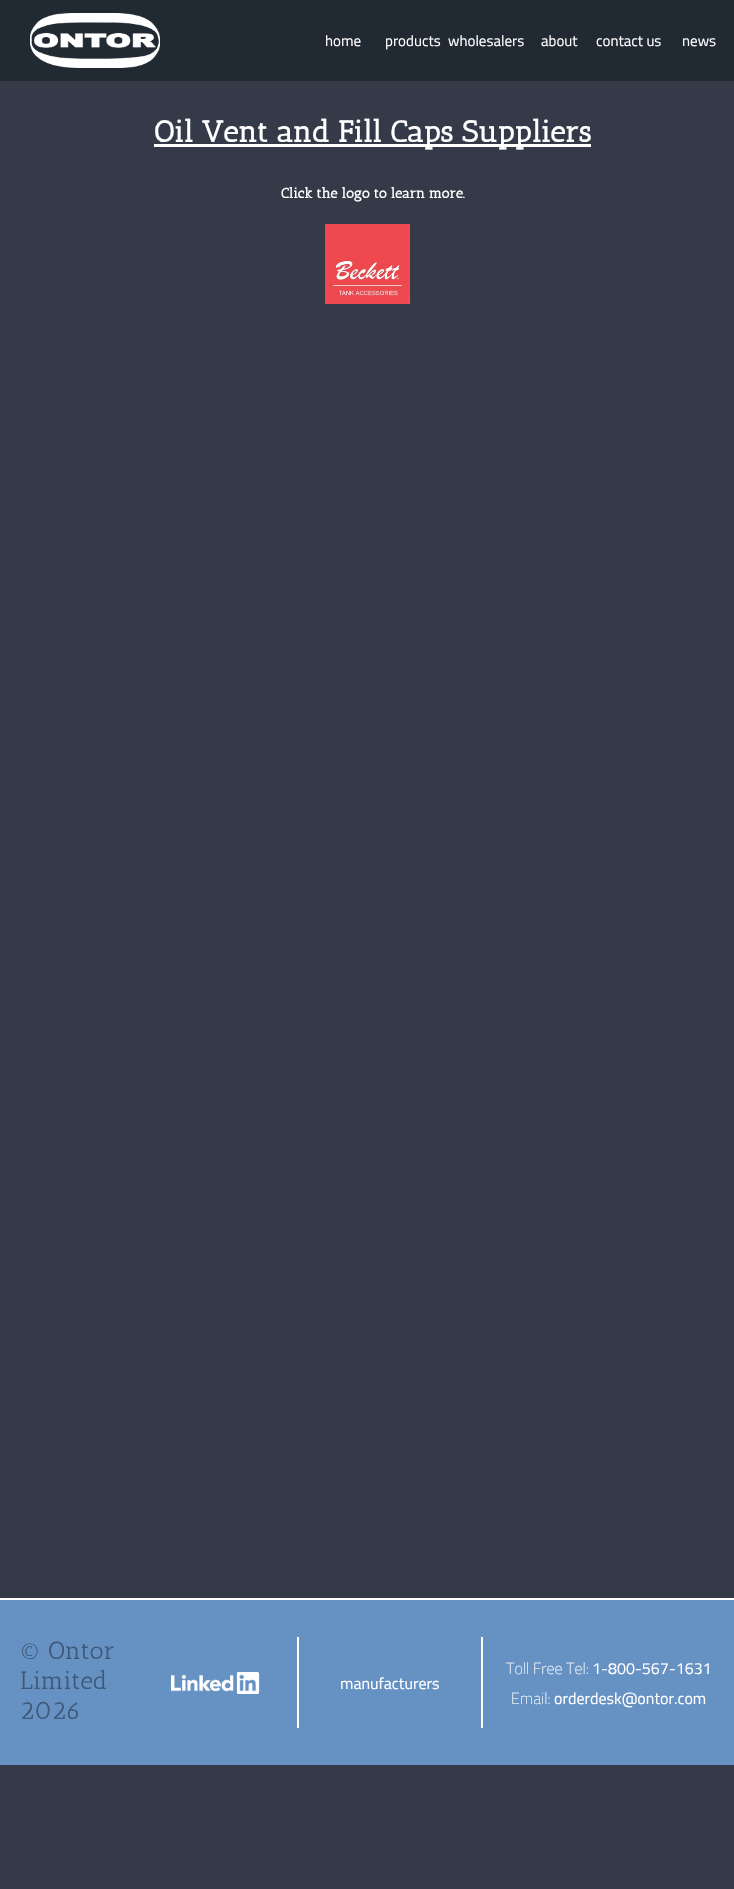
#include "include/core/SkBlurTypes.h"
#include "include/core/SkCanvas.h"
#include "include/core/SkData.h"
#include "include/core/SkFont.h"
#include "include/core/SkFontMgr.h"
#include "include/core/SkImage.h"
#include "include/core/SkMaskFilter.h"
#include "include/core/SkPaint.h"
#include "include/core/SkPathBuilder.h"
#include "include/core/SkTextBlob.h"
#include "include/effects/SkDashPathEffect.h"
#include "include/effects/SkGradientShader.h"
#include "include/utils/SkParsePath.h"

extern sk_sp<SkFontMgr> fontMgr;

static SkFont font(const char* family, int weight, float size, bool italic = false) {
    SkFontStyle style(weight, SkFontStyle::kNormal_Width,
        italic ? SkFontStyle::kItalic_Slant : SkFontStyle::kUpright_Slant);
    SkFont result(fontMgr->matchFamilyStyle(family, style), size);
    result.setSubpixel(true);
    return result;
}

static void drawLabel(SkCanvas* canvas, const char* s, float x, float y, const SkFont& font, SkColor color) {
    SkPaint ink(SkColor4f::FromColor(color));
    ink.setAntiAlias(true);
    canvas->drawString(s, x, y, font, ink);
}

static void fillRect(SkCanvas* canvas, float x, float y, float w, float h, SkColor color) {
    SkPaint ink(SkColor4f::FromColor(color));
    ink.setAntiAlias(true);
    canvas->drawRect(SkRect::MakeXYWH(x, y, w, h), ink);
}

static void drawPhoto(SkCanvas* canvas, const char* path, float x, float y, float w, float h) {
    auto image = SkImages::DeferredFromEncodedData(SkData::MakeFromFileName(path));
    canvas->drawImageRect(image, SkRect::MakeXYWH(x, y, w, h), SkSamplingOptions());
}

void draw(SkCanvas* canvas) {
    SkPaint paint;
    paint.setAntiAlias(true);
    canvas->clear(0xFF343A47);
    fillRect(canvas, 0, 0, 734, 81, 0xFF212933);
    drawPhoto(canvas, "assets/img1.png", 30, 13, 130, 55);
    SkFont font1 = font("Titillium Web", 400, 15);
    drawLabel(canvas, "home", 325, 46, font1, 0xFFFFFFFF);
    drawLabel(canvas, "products", 385, 46, font1, 0xFFFFFFFF);
    drawLabel(canvas, "wholesalers", 448, 46, font1, 0xFFFFFFFF);
    drawLabel(canvas, "about", 541, 46, font1, 0xFFFFFFFF);
    drawLabel(canvas, "contact us", 596, 46, font1, 0xFFFFFFFF);
    drawLabel(canvas, "news", 682, 46, font1, 0xFFFFFFFF);
    fillRect(canvas, 154, 144, 437, 3, 0xFFFFFFFF);
    SkFont font2 = font("Antic Slab", 700, 30);
    drawLabel(canvas, "Oil Vent and Fill Caps Suppliers", 154, 142, font2, 0xFFFFFFFF);
    SkFont font3 = font("Antic Slab", 700, 14);
    drawLabel(canvas, "Click the logo to learn more.", 281, 198, font3, 0xFFFFFFFF);
    drawPhoto(canvas, "assets/img2.png", 325, 224, 85, 80);
    fillRect(canvas, 0, 1600, 734, 165, 0xFF6691C3);
    fillRect(canvas, 0, 1598, 734, 2, 0xFFFFFFFF);
    SkFont font4 = font("Antic Slab", 400, 25);
    drawLabel(canvas, "© Ontor", 20, 1659, font4, 0xFF3E5877);
    drawLabel(canvas, "Limited", 20, 1689, font4, 0xFF3E5877);
    drawLabel(canvas, "2026", 20, 1719, font4, 0xFF3E5877);
    drawPhoto(canvas, "assets/img3.png", 171, 1672, 90, 22);
    fillRect(canvas, 297, 1637, 2, 91, 0xFFFFFFFF);
    SkFont font5 = font("Titillium Web", 400, 16);
    drawLabel(canvas, "manufacturers", 340, 1689, font5, 0xFFFFFFFF);
    fillRect(canvas, 481, 1637, 2, 91, 0xFFFFFFFF);
    SkFont font6 = font("Titillium Web", 300, 16);
    drawLabel(canvas, "Toll Free Tel:", 506, 1674, font6, 0xFFFFFFFF);
    drawLabel(canvas, "1-800-567-1631", 592, 1674, font5, 0xFFFFFFFF);
    drawLabel(canvas, "Email:", 511, 1704, font6, 0xFFFFFFFF);
    drawLabel(canvas, "orderdesk@ontor.com", 554, 1704, font5, 0xFFFFFFFF);
}
